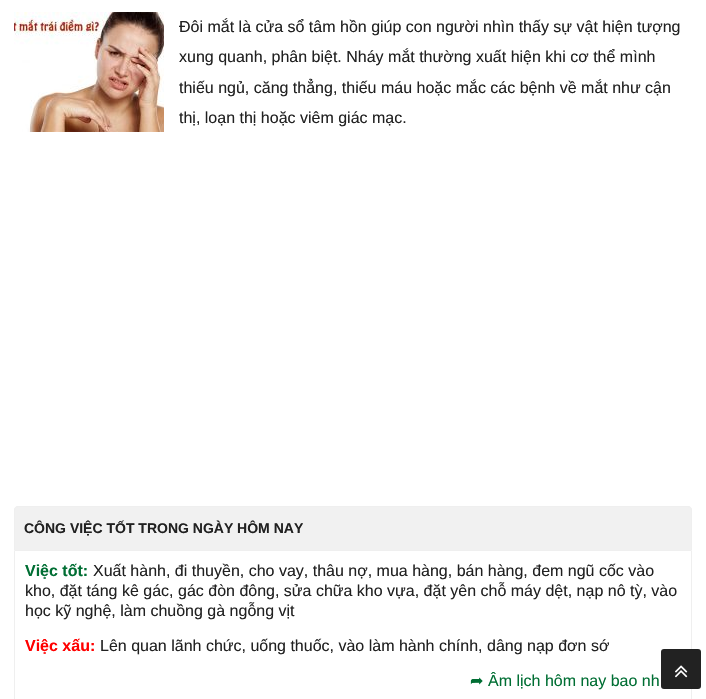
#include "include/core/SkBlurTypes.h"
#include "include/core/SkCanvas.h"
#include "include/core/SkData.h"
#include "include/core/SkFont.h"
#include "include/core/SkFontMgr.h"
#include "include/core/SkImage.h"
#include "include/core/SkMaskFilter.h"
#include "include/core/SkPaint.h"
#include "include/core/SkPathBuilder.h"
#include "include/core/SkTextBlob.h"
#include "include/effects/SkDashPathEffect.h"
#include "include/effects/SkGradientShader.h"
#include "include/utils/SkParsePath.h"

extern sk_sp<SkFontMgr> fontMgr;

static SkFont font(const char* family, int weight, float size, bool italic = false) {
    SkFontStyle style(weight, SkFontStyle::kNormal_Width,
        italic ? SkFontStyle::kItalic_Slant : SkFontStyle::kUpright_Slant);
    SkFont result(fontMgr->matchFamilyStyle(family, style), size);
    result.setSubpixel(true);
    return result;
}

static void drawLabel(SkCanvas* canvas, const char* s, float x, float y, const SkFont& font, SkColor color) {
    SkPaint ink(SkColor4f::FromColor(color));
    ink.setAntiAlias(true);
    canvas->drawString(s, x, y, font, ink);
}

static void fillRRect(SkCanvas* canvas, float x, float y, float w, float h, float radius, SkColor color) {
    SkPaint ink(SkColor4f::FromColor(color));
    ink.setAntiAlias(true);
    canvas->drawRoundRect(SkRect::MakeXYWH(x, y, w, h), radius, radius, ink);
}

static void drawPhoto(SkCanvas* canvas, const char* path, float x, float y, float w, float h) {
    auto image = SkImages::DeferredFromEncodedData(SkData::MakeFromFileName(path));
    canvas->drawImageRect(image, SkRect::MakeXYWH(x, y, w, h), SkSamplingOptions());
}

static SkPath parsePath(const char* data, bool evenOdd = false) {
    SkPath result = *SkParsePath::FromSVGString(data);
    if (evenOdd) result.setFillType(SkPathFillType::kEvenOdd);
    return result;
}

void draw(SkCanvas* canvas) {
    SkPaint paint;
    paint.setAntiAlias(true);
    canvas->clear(0xFFFFFFFF);
    drawPhoto(canvas, "assets/img1.png", 14, 12, 150, 120);
    SkFont font1 = font("Liberation Sans", 400, 16);
    drawLabel(canvas, "Đôi mắt là cửa sổ tâm hồn giúp con người nhìn thấy sự vật hiện tượng", 179, 32, font1, 0xFF212121);
    drawLabel(canvas, "xung quanh, phân biệt. Nháy mắt thường xuất hiện khi cơ thể mình", 179, 62, font1, 0xFF212121);
    drawLabel(canvas, "thiếu ngủ, căng thẳng, thiếu máu hoặc mắc các bệnh về mắt như cận", 179, 93, font1, 0xFF212121);
    drawLabel(canvas, "thị, loạn thị hoặc viêm giác mạc.", 179, 123, font1, 0xFF212121);
    paint.setColor(0xFFF1F1F1);
    canvas->drawPath(parsePath("M18 506H688C690 506 692 508 692 510V550H14V510C14 508 16 506 18 506Z"), paint);
    paint.setColor(0xFFEFEFEF);
    canvas->drawPath(parsePath("M18 506H688C690 506 692 508 692 510V550H14V510C14 508 16 506 18 506ZM18 507H688C690 507 691 508 691 510V550H15V510C15 508 16 507 18 507Z", true), paint);
    SkFont font2 = font("Liberation Sans", 700, 14);
    drawLabel(canvas, "CÔNG VIỆC TỐT TRONG NGÀY HÔM NAY", 24, 533, font2, 0xFF212121);
    canvas->drawPath(parsePath("M14 550L15 551H691L692 550Z"), paint);
    canvas->drawPath(parsePath("M692 550L691 551V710V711L692 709Z"), paint);
    canvas->drawPath(parsePath("M15 551L14 550V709L15 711V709Z"), paint);
    SkFont font3 = font("Liberation Sans", 700, 16);
    drawLabel(canvas, "Việc tốt:", 25, 576, font3, 0xFF006E33);
    drawLabel(canvas, "Xuất hành, đi thuyền, cho vay, thâu nợ, mua hàng, bán hàng, đem ngũ cốc vào", 93, 576, font1, 0xFF212121);
    drawLabel(canvas, "kho, đặt táng kê gác, gác đòn đông, sửa chữa kho vựa, đặt yên chỗ máy dệt, nạp nô tỳ, vào", 25, 596, font1, 0xFF212121);
    drawLabel(canvas, "học kỹ nghệ, làm chuồng gà ngỗng vịt", 25, 616, font1, 0xFF212121);
    drawLabel(canvas, "Việc xấu:", 25, 651, font3, 0xFFFF0000);
    drawLabel(canvas, "Lên quan lãnh chức, uống thuốc, vào làm hành chính, dâng nạp đơn sớ", 100, 651, font1, 0xFF212121);
    SkFont font4 = font("DejaVu Sans", 400, 16);
    drawLabel(canvas, "➦", 470, 686, font4, 0xFF006E33);
    drawLabel(canvas, "Âm lịch hôm nay bao nh", 488, 686, font1, 0xFF006E33);
    fillRRect(canvas, 661, 649, 40, 40, 3, 0xFF222222);
    drawPhoto(canvas, "assets/img2.png", 675, 665, 13, 13);
}
